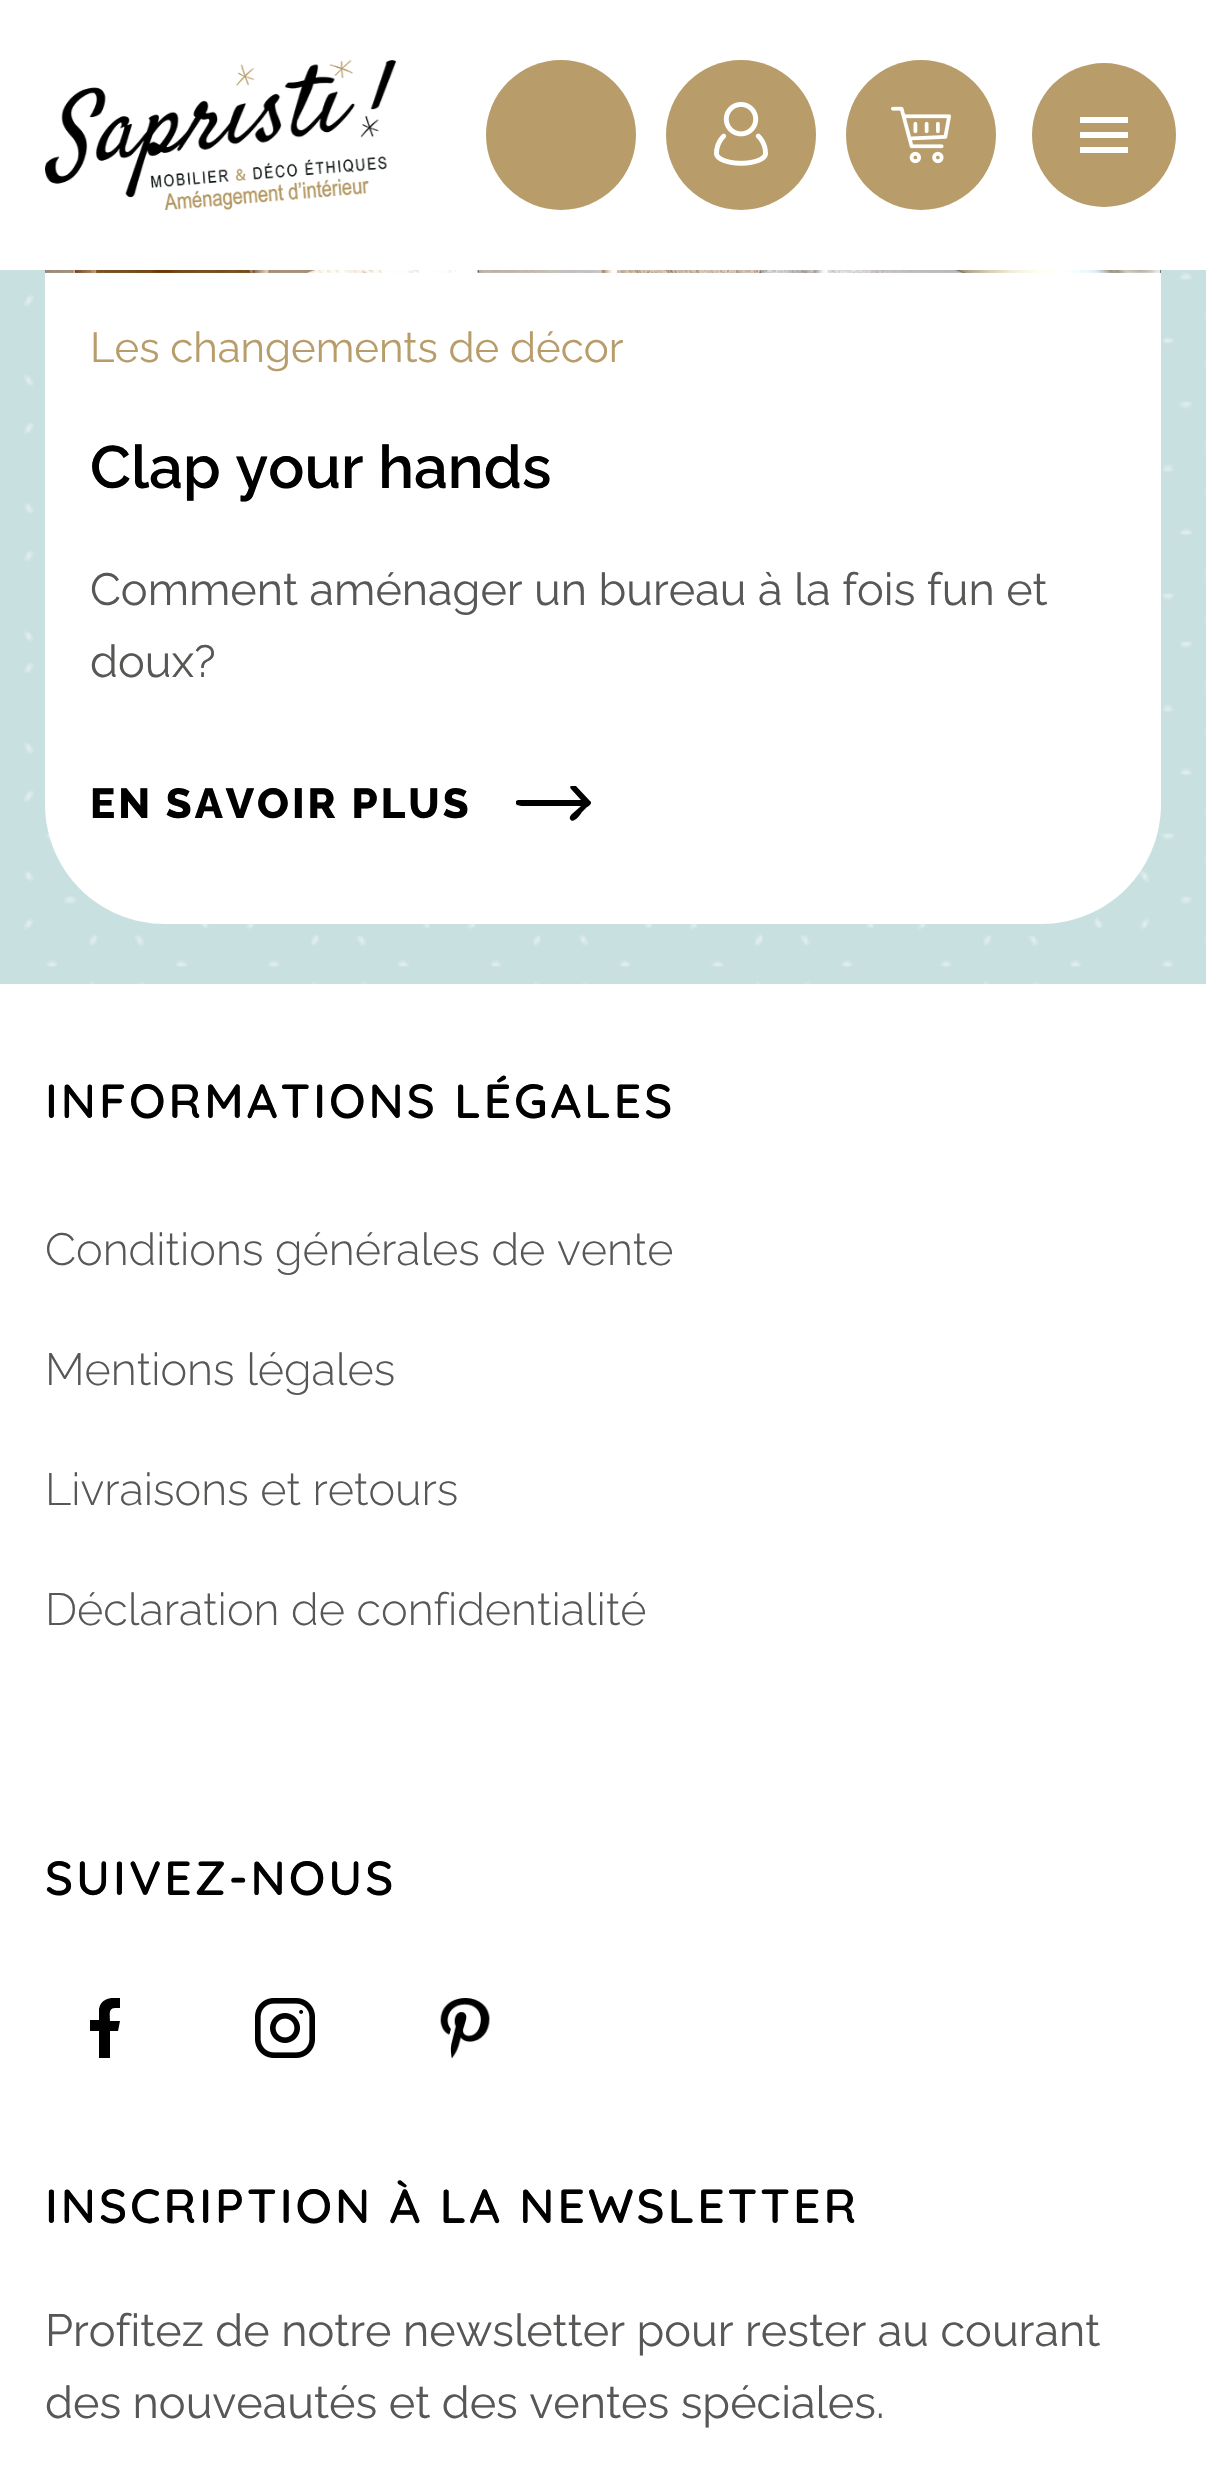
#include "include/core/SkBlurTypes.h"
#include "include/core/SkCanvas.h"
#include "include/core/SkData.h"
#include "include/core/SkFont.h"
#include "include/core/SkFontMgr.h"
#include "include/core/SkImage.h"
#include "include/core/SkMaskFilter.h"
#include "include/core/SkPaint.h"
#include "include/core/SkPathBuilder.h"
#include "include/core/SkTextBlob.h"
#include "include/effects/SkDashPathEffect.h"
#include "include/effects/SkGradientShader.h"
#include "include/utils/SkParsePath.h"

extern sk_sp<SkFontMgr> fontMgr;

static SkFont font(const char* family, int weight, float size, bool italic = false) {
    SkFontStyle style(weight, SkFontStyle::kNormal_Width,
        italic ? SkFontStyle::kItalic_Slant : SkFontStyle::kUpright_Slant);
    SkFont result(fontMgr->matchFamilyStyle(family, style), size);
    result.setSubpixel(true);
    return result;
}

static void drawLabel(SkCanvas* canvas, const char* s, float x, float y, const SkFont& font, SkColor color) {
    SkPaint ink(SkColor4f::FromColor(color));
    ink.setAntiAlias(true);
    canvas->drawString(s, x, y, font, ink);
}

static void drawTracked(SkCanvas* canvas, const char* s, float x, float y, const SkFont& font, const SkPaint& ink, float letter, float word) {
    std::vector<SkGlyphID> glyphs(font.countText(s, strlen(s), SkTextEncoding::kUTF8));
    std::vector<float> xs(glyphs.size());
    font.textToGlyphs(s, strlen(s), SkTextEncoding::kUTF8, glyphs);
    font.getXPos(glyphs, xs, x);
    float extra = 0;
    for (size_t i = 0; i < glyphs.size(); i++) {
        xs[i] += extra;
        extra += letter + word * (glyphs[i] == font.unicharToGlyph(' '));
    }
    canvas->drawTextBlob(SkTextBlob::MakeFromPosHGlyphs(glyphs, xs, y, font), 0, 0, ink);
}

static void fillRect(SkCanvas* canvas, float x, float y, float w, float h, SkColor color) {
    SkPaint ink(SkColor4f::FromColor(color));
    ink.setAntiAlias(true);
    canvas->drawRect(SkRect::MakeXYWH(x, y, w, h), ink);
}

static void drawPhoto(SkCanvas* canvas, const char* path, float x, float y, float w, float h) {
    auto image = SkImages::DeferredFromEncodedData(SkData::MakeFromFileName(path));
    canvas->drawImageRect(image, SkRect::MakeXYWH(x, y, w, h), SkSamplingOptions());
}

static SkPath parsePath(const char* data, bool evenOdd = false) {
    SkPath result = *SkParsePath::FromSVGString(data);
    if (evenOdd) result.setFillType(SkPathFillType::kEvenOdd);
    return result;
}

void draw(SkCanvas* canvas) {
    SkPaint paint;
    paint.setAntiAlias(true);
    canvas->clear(0xFFC8E0E0);
    drawPhoto(canvas, "assets/img1.png", 23, 272, 1183, 712);
    paint.setColor(0xFFFFFFFF);
    canvas->drawPath(parsePath("M45-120H1161V804C1161 870.5 1107.5 924 1041 924H165C98.5 924 45 870.5 45 804Z"), paint);
    fillRect(canvas, 0, 0, 1206, 270, 0xFFFFFFFF);
    drawPhoto(canvas, "assets/img2.png", 45, 60, 352, 150);
    paint.setColor(0xFFB89D6B);
    canvas->drawCircle(561, 135, 75, paint);
    canvas->drawCircle(741, 135, 75, paint);
    drawPhoto(canvas, "assets/img3.png", 714, 102, 54, 64);
    canvas->drawCircle(921, 135, 75, paint);
    drawPhoto(canvas, "assets/img4.png", 891, 106, 60, 58);
    canvas->drawCircle(1104, 135, 72, paint);
    fillRect(canvas, 1080, 132, 48, 6, 0xFFFFFFFF);
    fillRect(canvas, 1080, 117, 48, 6, 0xFFFFFFFF);
    fillRect(canvas, 1080, 147, 48, 6, 0xFFFFFFFF);
    drawPhoto(canvas, "assets/img5.png", 45, 270, 1116, 3);
    SkFont font1 = font("Raleway", 400, 42);
    drawLabel(canvas, "Les changements de décor", 90, 362, font1, 0xFFB89D6B);
    SkFont font2 = font("Raleway", 600, 60);
    drawLabel(canvas, "Clap your hands", 90, 488, font2, 0xFF000000);
    SkFont font3 = font("Raleway", 400, 45);
    drawLabel(canvas, "Comment aménager un bureau à la fois fun et", 90, 605, font3, 0xFF575756);
    drawLabel(canvas, "doux?", 90, 677, font3, 0xFF575756);
    SkFont font4 = font("Raleway", 800, 42);
    paint.setColor(0xFF000000);
    drawTracked(canvas, "EN SAVOIR PLUS", 90, 818, font4, paint, 3, 0);
    canvas->save();
    canvas->clipRect(SkRect::MakeXYWH(516, 786, 75, 36));
    canvas->drawPath(parsePath("M590 801L575 785C574 784 572 784 571 785C570 787 570 788 571 789L581 800H518L516 801C514 807 523 806 529 806H581L572 814C571 815 569 817 570 819C573 825 581 814 582 812L587 807C589 806 593 803 590 801Z"), paint);
    canvas->restore();
    fillRect(canvas, 0, 984, 1206, 1504, 0xFFFFFFFF);
    SkFont font5 = font("Quicksand", 600, 48);
    drawTracked(canvas, "INFORMATIONS LÉGALES", 45, 1118, font5, paint, 3, 0);
    SkFont font6 = font("Raleway", 300, 45);
    drawLabel(canvas, "Conditions générales de vente", 45, 1265, font6, 0xFF575756);
    drawLabel(canvas, "Mentions légales", 45, 1385, font6, 0xFF575756);
    drawLabel(canvas, "Livraisons et retours", 45, 1505, font6, 0xFF575756);
    drawLabel(canvas, "Déclaration de confidentialité", 45, 1625, font6, 0xFF575756);
    drawTracked(canvas, "SUIVEZ-NOUS", 45, 1895, font5, paint, 3, 0);
    canvas->save();
    canvas->clipRect(SkRect::MakeXYWH(75, 1998, 60, 60));
    canvas->drawPath(parsePath("M115 2008H120V1998C112 1997 101 1998 99 2009V2020H90V2031H99V2058H110V2031H118L120 2021H110C110 2016 108 2008 115 2008Z"), paint);
    canvas->restore();
    drawPhoto(canvas, "assets/img6.png", 255, 1998, 60, 60);
    drawPhoto(canvas, "assets/img7.png", 440, 1998, 50, 60);
    drawTracked(canvas, "INSCRIPTION À LA NEWSLETTER", 45, 2223, font5, paint, 3, 0);
    drawLabel(canvas, "Profitez de notre newsletter pour rester au courant", 45, 2346, font3, 0xFF575756);
    drawLabel(canvas, "des nouveautés et des ventes spéciales.", 45, 2418, font3, 0xFF575756);
}
